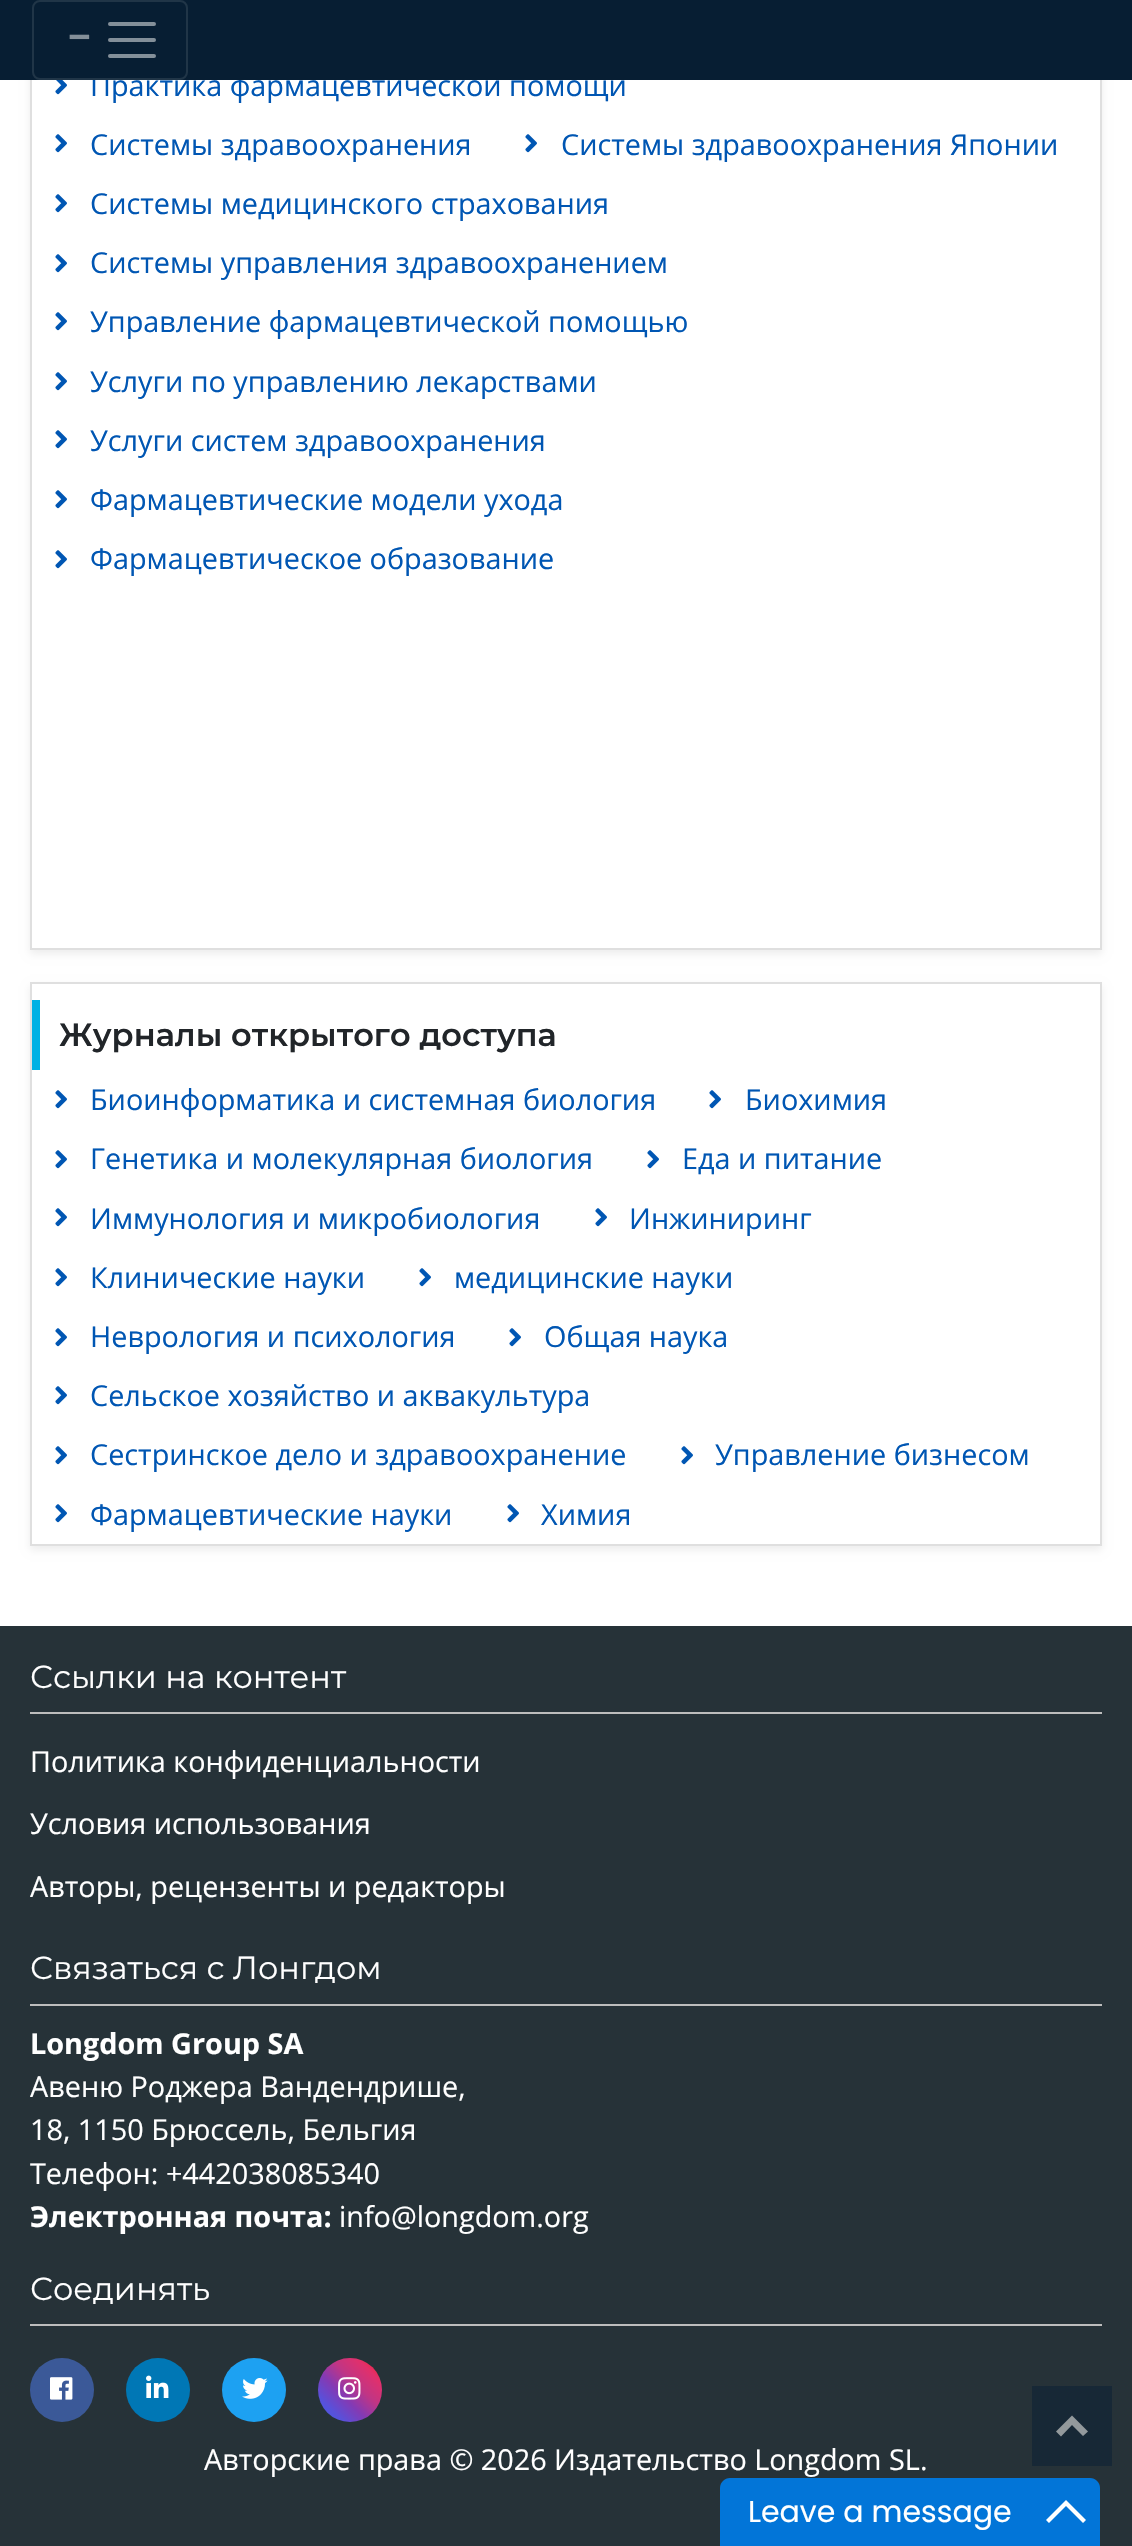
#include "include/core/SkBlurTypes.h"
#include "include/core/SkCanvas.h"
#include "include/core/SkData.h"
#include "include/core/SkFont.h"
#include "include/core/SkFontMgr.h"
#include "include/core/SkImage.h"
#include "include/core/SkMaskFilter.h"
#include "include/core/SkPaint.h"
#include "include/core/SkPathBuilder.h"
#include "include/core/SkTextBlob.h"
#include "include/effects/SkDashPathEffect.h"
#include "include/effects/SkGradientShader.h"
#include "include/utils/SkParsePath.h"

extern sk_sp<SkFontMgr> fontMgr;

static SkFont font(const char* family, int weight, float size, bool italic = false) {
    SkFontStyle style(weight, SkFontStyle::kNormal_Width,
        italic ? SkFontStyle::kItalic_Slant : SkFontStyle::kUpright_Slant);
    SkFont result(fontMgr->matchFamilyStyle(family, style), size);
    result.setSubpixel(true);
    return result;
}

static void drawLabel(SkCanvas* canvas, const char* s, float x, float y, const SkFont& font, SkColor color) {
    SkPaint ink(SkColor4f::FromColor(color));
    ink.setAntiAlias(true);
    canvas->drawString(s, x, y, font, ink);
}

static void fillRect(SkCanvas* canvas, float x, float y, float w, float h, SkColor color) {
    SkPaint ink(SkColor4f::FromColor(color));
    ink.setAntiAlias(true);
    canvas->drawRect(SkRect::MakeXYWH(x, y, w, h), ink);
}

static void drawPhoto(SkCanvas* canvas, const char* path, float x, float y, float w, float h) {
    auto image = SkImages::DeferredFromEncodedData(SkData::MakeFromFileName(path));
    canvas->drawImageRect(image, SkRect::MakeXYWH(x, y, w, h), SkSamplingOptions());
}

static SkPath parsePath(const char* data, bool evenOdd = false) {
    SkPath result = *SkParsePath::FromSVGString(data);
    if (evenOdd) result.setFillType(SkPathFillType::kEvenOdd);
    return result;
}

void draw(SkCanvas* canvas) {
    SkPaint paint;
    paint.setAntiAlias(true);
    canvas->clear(0xFFFFFFFF);
    canvas->save();
    canvas->clipPath(parsePath("M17 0H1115V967H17ZM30-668H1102V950H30Z", true), true);
    paint.setColor(0x12000000);
    paint.setMaskFilter(SkMaskFilter::MakeBlur(kNormal_SkBlurStyle, 4));
    canvas->drawRect(SkRect::MakeXYWH(30, -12, 1072, 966), paint);
    paint.setMaskFilter(nullptr);
    canvas->restore();
    paint.setStroke(true);
    paint.setStrokeWidth(2);
    paint.setColor(0xFFDFDFDF);
    canvas->drawRect(SkRect::MakeXYWH(31, -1, 1070, 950), paint);
    SkFont font1 = font("Open Sans", 400, 28.8f);
    drawLabel(canvas, "Практика фармацевтической помощи", 90, 96, font1, 0xFF0056B3);
    fillRect(canvas, 0, 0, 1132, 80, 0xFF071E33);
    paint.setColor(0xFF203547);
    canvas->drawRoundRect(SkRect::MakeXYWH(33, 1, 154, 78), 7, 7, paint);
    SkFont font2 = font("Open Sans", 700, 40);
    drawLabel(canvas, "−", 68, 51, font2, 0xFF838F99);
    paint.setStrokeWidth(4);
    paint.setStrokeCap(SkPaint::kRound_Cap);
    paint.setColor(0xFF838F99);
    canvas->drawPath(parsePath("M110 24H154M110 40H154M110 56H154"), paint);
    drawPhoto(canvas, "assets/img1.png", 55, 80, 12, 15);
    drawPhoto(canvas, "assets/img2.png", 55, 134, 12, 19);
    drawLabel(canvas, "Системы здравоохранения", 90, 155, font1, 0xFF0056B3);
    drawPhoto(canvas, "assets/img2.png", 525, 134, 12, 19);
    drawLabel(canvas, "Системы здравоохранения Японии", 561, 155, font1, 0xFF0056B3);
    drawPhoto(canvas, "assets/img2.png", 55, 194, 12, 19);
    drawLabel(canvas, "Системы медицинского страхования", 90, 214, font1, 0xFF0056B3);
    drawPhoto(canvas, "assets/img2.png", 55, 254, 12, 19);
    drawLabel(canvas, "Системы управления здравоохранением", 90, 273, font1, 0xFF0056B3);
    drawPhoto(canvas, "assets/img2.png", 55, 312, 12, 19);
    drawLabel(canvas, "Управление фармацевтической помощью", 90, 332, font1, 0xFF0056B3);
    drawPhoto(canvas, "assets/img2.png", 55, 372, 12, 19);
    drawLabel(canvas, "Услуги по управлению лекарствами", 90, 392, font1, 0xFF0056B3);
    drawPhoto(canvas, "assets/img2.png", 55, 430, 12, 19);
    drawLabel(canvas, "Услуги систем здравоохранения", 90, 451, font1, 0xFF0056B3);
    drawPhoto(canvas, "assets/img2.png", 55, 490, 12, 19);
    drawLabel(canvas, "Фармацевтические модели ухода", 90, 510, font1, 0xFF0056B3);
    drawPhoto(canvas, "assets/img2.png", 55, 550, 12, 19);
    drawLabel(canvas, "Фармацевтическое образование", 90, 569, font1, 0xFF0056B3);
    canvas->save();
    canvas->clipPath(parsePath("M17 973H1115V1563H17ZM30 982H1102V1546H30Z", true), true);
    paint.setStroke(false);
    paint.setColor(0x12000000);
    paint.setMaskFilter(SkMaskFilter::MakeBlur(kNormal_SkBlurStyle, 4));
    canvas->drawRect(SkRect::MakeXYWH(30, 986, 1072, 564), paint);
    paint.setMaskFilter(nullptr);
    canvas->restore();
    paint.setStroke(true);
    paint.setStrokeWidth(2);
    paint.setStrokeCap(SkPaint::kButt_Cap);
    paint.setColor(0xFFDFDFDF);
    canvas->drawRect(SkRect::MakeXYWH(31, 983, 1070, 562), paint);
    fillRect(canvas, 32, 1000, 8, 70, 0xFF00B1E4);
    SkFont font3 = font("Montserrat", 100, 32);
    drawLabel(canvas, "Журналы открытого доступа", 59, 1046, font3, 0xFF212529);
    drawPhoto(canvas, "assets/img2.png", 55, 1090, 12, 19);
    drawLabel(canvas, "Биоинформатика и системная биология", 90, 1110, font1, 0xFF0056B3);
    drawPhoto(canvas, "assets/img2.png", 709, 1090, 12, 19);
    drawLabel(canvas, "Биохимия", 745, 1110, font1, 0xFF0056B3);
    drawPhoto(canvas, "assets/img2.png", 55, 1150, 12, 19);
    drawLabel(canvas, "Генетика и молекулярная биология", 90, 1169, font1, 0xFF0056B3);
    drawPhoto(canvas, "assets/img2.png", 647, 1150, 12, 19);
    drawLabel(canvas, "Еда и питание", 682, 1169, font1, 0xFF0056B3);
    drawPhoto(canvas, "assets/img2.png", 55, 1208, 12, 19);
    drawLabel(canvas, "Иммунология и микробиология", 90, 1229, font1, 0xFF0056B3);
    drawPhoto(canvas, "assets/img2.png", 595, 1208, 12, 19);
    drawLabel(canvas, "Инжиниринг", 629, 1229, font1, 0xFF0056B3);
    drawPhoto(canvas, "assets/img2.png", 55, 1268, 12, 19);
    drawLabel(canvas, "Клинические науки", 90, 1288, font1, 0xFF0056B3);
    drawPhoto(canvas, "assets/img2.png", 419, 1268, 12, 19);
    drawLabel(canvas, "медицинские науки", 454, 1288, font1, 0xFF0056B3);
    drawPhoto(canvas, "assets/img2.png", 55, 1328, 12, 19);
    drawLabel(canvas, "Неврология и психология", 90, 1347, font1, 0xFF0056B3);
    drawPhoto(canvas, "assets/img2.png", 509, 1328, 12, 19);
    drawLabel(canvas, "Общая наука", 544, 1347, font1, 0xFF0056B3);
    drawPhoto(canvas, "assets/img2.png", 55, 1386, 12, 19);
    drawLabel(canvas, "Сельское хозяйство и аквакультура", 90, 1406, font1, 0xFF0056B3);
    drawPhoto(canvas, "assets/img2.png", 55, 1446, 12, 19);
    drawLabel(canvas, "Сестринское дело и здравоохранение", 90, 1465, font1, 0xFF0056B3);
    drawPhoto(canvas, "assets/img2.png", 681, 1446, 12, 19);
    drawLabel(canvas, "Управление бизнесом", 715, 1465, font1, 0xFF0056B3);
    drawPhoto(canvas, "assets/img2.png", 55, 1504, 12, 19);
    drawLabel(canvas, "Фармацевтические науки", 90, 1525, font1, 0xFF0056B3);
    drawPhoto(canvas, "assets/img2.png", 507, 1504, 12, 19);
    drawLabel(canvas, "Химия", 541, 1525, font1, 0xFF0056B3);
    fillRect(canvas, 0, 1626, 1132, 920, 0xFF263238);
    fillRect(canvas, 30, 1712, 1072, 2, 0xFFBDBDBD);
    SkFont font4 = font("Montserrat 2", 100, 32);
    drawLabel(canvas, "Ссылки на контент", 30, 1688, font4, 0xFFFFFFFF);
    drawLabel(canvas, "Политика конфиденциальности", 30, 1772, font1, 0xFFFFFFFF);
    drawLabel(canvas, "Условия использования", 30, 1834, font1, 0xFFFFFFFF);
    drawLabel(canvas, "Авторы, рецензенты и редакторы", 30, 1897, font1, 0xFFFFFFFF);
    fillRect(canvas, 30, 2004, 1072, 2, 0xFFBDBDBD);
    drawLabel(canvas, "Связаться с Лонгдом", 30, 1979, font4, 0xFFFFFFFF);
    SkFont font5 = font("Open Sans", 700, 28.8f);
    drawLabel(canvas, "Longdom Group SA", 30, 2054, font5, 0xFFFFFFFF);
    drawLabel(canvas, "Авеню Роджера Вандендрише,", 30, 2097, font1, 0xFFFFFFFF);
    drawLabel(canvas, "18, 1150 Брюссель, Бельгия", 30, 2140, font1, 0xFFFFFFFF);
    drawLabel(canvas, "Телефон: +442038085340", 30, 2184, font1, 0xFFFFFFFF);
    drawLabel(canvas, "Электронная почта:", 30, 2227, font5, 0xFFFFFFFF);
    drawLabel(canvas, "info@longdom.org", 339, 2227, font1, 0xFFFFFFFF);
    fillRect(canvas, 30, 2324, 1072, 2, 0xFFBDBDBD);
    drawLabel(canvas, "Соединять", 30, 2300, font4, 0xFFFFFFFF);
    paint.setStroke(false);
    paint.setColor(0xFF3B5998);
    canvas->drawCircle(62, 2390, 32, paint);
    drawPhoto(canvas, "assets/img3.png", 50, 2377, 23, 23);
    paint.setColor(0xFF0077B5);
    canvas->drawCircle(158, 2390, 32, paint);
    drawPhoto(canvas, "assets/img4.png", 146, 2375, 23, 23);
    paint.setColor(0xFF1DA1F2);
    canvas->drawCircle(254, 2390, 32, paint);
    drawPhoto(canvas, "assets/img5.png", 242, 2378, 26, 21);
    {
        const SkColor colors[] = {0xFF405DE6, 0xFF5851DB, 0xFF833AB4, 0xFFC13584, 0xFFE1306C, 0xFFFD1D1D};
        const float stops[] = {0, 0.2f, 0.4f, 0.6f, 0.8f, 1};
        const SkPoint ends[] = {{318, 2422}, {382, 2358}};
        paint.setShader(SkGradientShader::MakeLinear(ends, colors, stops, 6, SkTileMode::kClamp));
        paint.setAlpha(255);
    }
    canvas->drawCircle(350, 2390, 32, paint);
    drawPhoto(canvas, "assets/img6.png", 338, 2377, 23, 23);
    drawLabel(canvas, "Авторские права © 2026", 204, 2470, font1, 0xFFFFFFFF);
    drawLabel(canvas, "Издательство Longdom SL", 554, 2470, font1, 0xFFFFFFFF);
    drawLabel(canvas, ".", 920, 2470, font1, 0xFFFFFFFF);
    fillRect(canvas, 1032, 2386, 80, 80, 0xFF172836);
    paint.setShader(nullptr);
    paint.setColor(0xFF93999C);
    canvas->drawPath(parsePath("M1072 2415.5L1088 2431.5L1083 2436L1072 2425L1061 2436.5L1056 2431.5Z"), paint);
    paint.setColor(0xFF0275D8);
    canvas->drawPath(parsePath("M730 2478H1090C1095.5 2478 1100 2482.5 1100 2488V2546H720V2488C720 2482.5 724.5 2478 730 2478Z"), paint);
    SkFont font6 = font("Poppins", 400, 30);
    drawLabel(canvas, "Leave a message", 748, 2522, font6, 0xFFFFFFFF);
    paint.setColor(0xFFFFFFFF);
    canvas->drawPath(parsePath("M1066 2500L1086 2520L1083 2523L1066 2506L1049 2523L1046 2520Z"), paint);
}
